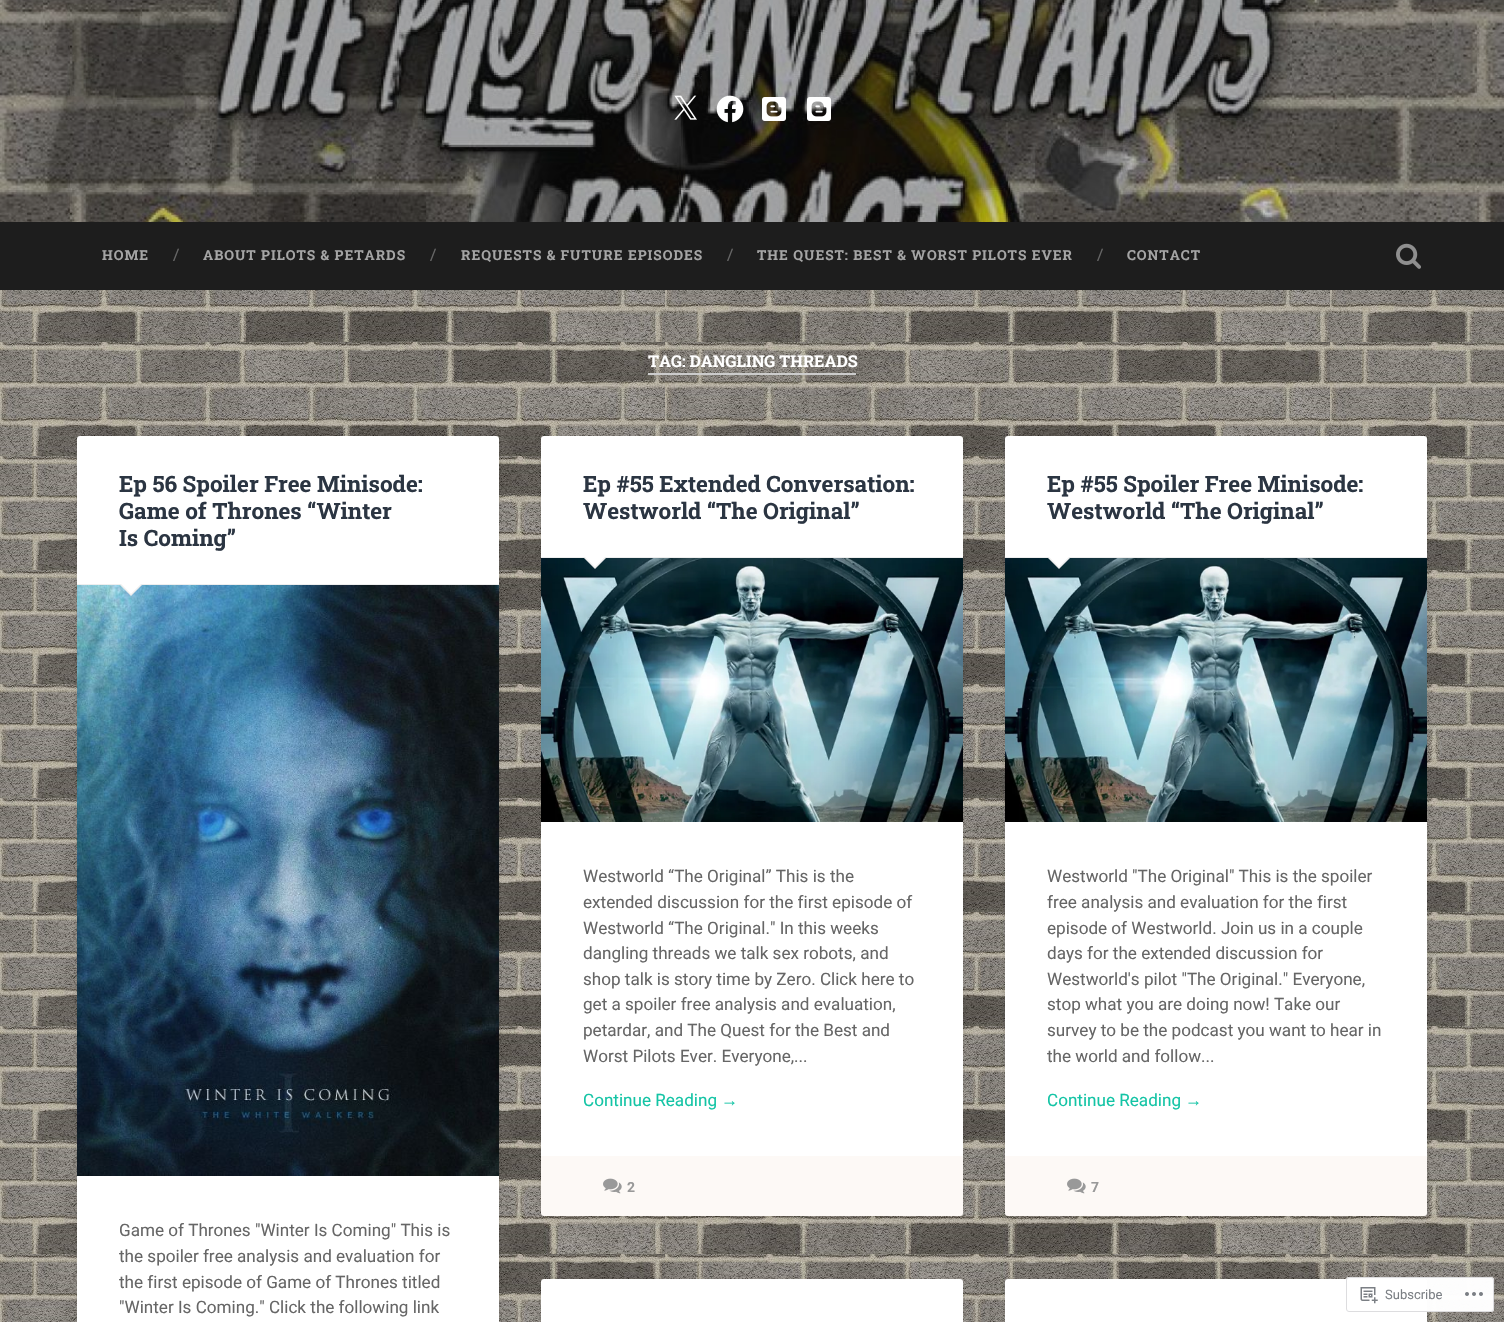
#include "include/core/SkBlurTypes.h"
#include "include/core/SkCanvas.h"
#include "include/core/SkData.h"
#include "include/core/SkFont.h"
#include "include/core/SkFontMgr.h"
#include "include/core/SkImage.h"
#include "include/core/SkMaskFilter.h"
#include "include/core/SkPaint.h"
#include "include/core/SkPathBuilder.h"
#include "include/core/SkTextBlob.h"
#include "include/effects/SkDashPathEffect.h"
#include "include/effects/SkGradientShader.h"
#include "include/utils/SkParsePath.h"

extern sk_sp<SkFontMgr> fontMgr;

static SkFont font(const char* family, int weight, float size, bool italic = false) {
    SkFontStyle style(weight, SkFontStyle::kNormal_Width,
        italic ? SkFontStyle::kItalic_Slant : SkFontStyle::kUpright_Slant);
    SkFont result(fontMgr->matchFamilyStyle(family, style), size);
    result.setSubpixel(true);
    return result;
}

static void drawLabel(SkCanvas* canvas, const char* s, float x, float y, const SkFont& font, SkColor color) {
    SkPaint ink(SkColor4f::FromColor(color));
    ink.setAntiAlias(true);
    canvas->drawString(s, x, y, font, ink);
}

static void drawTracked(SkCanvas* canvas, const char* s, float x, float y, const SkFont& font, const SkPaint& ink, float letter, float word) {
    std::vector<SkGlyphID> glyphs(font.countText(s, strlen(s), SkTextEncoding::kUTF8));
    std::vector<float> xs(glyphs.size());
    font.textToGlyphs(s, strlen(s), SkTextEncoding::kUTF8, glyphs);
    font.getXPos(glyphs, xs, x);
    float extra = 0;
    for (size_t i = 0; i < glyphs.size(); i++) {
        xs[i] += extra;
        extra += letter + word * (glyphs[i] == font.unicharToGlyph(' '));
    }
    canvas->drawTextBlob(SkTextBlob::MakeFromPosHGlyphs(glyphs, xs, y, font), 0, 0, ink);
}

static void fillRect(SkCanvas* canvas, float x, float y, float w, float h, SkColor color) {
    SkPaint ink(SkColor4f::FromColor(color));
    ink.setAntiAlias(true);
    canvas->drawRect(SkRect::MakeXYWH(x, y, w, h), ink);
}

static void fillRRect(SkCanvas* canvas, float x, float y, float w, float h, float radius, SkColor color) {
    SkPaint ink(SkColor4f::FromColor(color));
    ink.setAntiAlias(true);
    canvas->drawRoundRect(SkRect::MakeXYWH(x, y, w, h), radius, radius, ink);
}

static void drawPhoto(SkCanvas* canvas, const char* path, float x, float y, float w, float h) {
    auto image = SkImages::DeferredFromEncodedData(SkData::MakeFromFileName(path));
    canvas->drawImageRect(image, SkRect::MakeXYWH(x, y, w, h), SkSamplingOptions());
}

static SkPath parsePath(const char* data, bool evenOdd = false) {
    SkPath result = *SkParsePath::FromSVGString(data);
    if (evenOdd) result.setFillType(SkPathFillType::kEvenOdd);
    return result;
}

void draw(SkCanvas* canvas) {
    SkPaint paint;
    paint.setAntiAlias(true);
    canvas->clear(0xFFFFFFFF);
    drawPhoto(canvas, "assets/img1.png", 0, 290, 1504, 1032);
    drawPhoto(canvas, "assets/img2.png", 0, 0, 1504, 222);
    drawPhoto(canvas, "assets/img3.png", 674, 95, 23, 25);
    drawPhoto(canvas, "assets/img4.png", 716, 95, 28, 28);
    drawPhoto(canvas, "assets/img5.png", 762, 97, 24, 24);
    drawPhoto(canvas, "assets/img6.png", 807, 97, 24, 24);
    fillRect(canvas, 0, 222, 1504, 68, 0xFF1D1D1D);
    SkFont font1 = font("Roboto Slab", 700, 13.75f);
    paint.setColor(0xFFA5A5A5);
    drawTracked(canvas, "HOME", 102, 260, font1, paint, 1, 0);
    SkFont font2 = font("Roboto Slab", 400, 16);
    drawLabel(canvas, "/", 173, 260, font2, 0xFF666666);
    drawTracked(canvas, "ABOUT PILOTS & PETARDS", 203, 260, font1, paint, 1, 0);
    drawLabel(canvas, "/", 430, 260, font2, 0xFF666666);
    drawTracked(canvas, "REQUESTS & FUTURE EPISODES", 461, 260, font1, paint, 1, 0);
    drawLabel(canvas, "/", 727, 260, font2, 0xFF666666);
    drawTracked(canvas, "THE QUEST: BEST & WORST PILOTS EVER", 757, 260, font1, paint, 1, 0);
    drawLabel(canvas, "/", 1097, 260, font2, 0xFF666666);
    drawTracked(canvas, "CONTACT", 1127, 260, font1, paint, 1, 0);
    drawPhoto(canvas, "assets/img7.png", 1396, 243, 25, 26);
    fillRect(canvas, 648, 373, 208, 2, 0xFFCCCCCC);
    SkFont font3 = font("Roboto Slab", 700, 16.25f);
    drawLabel(canvas, "TAG: DANGLING THREADS", 648, 367, font3, 0xFFFFFFFF);
    paint.setColor(0x1A000000);
    paint.setMaskFilter(SkMaskFilter::MakeBlur(kNormal_SkBlurStyle, 2));
    canvas->drawRoundRect(SkRect::MakeXYWH(77, 437, 422, 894), 3, 3, paint);
    paint.setMaskFilter(nullptr);
    fillRRect(canvas, 77, 436, 422, 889, 3, 0xFFFFFFFF);
    fillRect(canvas, 77, 584, 422, 1, 0xFFEEEEEE);
    SkFont font4 = font("Roboto Slab", 700, 22.5f);
    drawLabel(canvas, "Ep 56 Spoiler Free Minisode:", 119, 492, font4, 0xFF2B3542);
    drawLabel(canvas, "Game of Thrones “Winter", 119, 519, font4, 0xFF2B3542);
    drawLabel(canvas, "Is Coming”", 119, 546, font4, 0xFF2B3542);
    drawPhoto(canvas, "assets/img8.png", 77, 585, 422, 591);
    paint.setColor(0xFFEEEEEE);
    canvas->drawPath(parsePath("M119 584H143L131 596Z"), paint);
    paint.setColor(0xFFFFFFFF);
    canvas->drawPath(parsePath("M120 583H142L131 594Z"), paint);
    SkFont font5 = font("Roboto", 400, 17.1f);
    drawLabel(canvas, "Game of Thrones \"Winter Is Coming\" This is", 119, 1236, font5, 0xFF666666);
    drawLabel(canvas, "the spoiler free analysis and evaluation for", 119, 1262, font5, 0xFF666666);
    drawLabel(canvas, "the first episode of Game of Thrones titled", 119, 1288, font5, 0xFF666666);
    drawLabel(canvas, "\"Winter Is Coming.\" Click the following link", 119, 1313, font5, 0xFF666666);
    paint.setColor(0x1A000000);
    paint.setMaskFilter(SkMaskFilter::MakeBlur(kNormal_SkBlurStyle, 2));
    canvas->drawRoundRect(SkRect::MakeXYWH(541, 437, 422, 780), 3, 3, paint);
    paint.setMaskFilter(nullptr);
    fillRRect(canvas, 541, 436, 422, 780, 3, 0xFFFFFFFF);
    fillRect(canvas, 541, 557, 422, 1, 0xFFEEEEEE);
    drawLabel(canvas, "Ep #55 Extended Conversation:", 583, 492, font4, 0xFF2B3542);
    drawLabel(canvas, "Westworld “The Original”", 583, 519, font4, 0xFF2B3542);
    drawPhoto(canvas, "assets/img9.png", 541, 558, 422, 264);
    paint.setColor(0xFFEEEEEE);
    canvas->drawPath(parsePath("M583 557H607L595 569Z"), paint);
    paint.setColor(0xFFFFFFFF);
    canvas->drawPath(parsePath("M584 556H606L595 567Z"), paint);
    drawLabel(canvas, "Westworld “The Original” This is the", 583, 882, font5, 0xFF666666);
    drawLabel(canvas, "extended discussion for the first episode of", 583, 908, font5, 0xFF666666);
    drawLabel(canvas, "Westworld “The Original.\" In this weeks", 583, 934, font5, 0xFF666666);
    drawLabel(canvas, "dangling threads we talk sex robots, and", 583, 959, font5, 0xFF666666);
    drawLabel(canvas, "shop talk is story time by Zero. Click here to", 583, 985, font5, 0xFF666666);
    drawLabel(canvas, "get a spoiler free analysis and evaluation,", 583, 1010, font5, 0xFF666666);
    drawLabel(canvas, "petardar, and The Quest for the Best and", 583, 1036, font5, 0xFF666666);
    drawLabel(canvas, "Worst Pilots Ever. Everyone,...", 583, 1062, font5, 0xFF666666);
    drawLabel(canvas, "Continue Reading", 583, 1106, font5, 0xFF13C4A5);
    SkFont font6 = font("Liberation Sans", 400, 17.1f);
    drawLabel(canvas, "→", 721, 1106, font6, 0xFF13C4A5);
    paint.setColor(0x1AEAC9A8);
    canvas->drawPath(parsePath("M541 1156H963V1213C963 1214.5 961.5 1216 960 1216H544C542.5 1216 541 1214.5 541 1213Z"), paint);
    drawPhoto(canvas, "assets/img10.png", 603, 1178, 19, 16);
    SkFont font7 = font("Roboto", 700, 14);
    drawLabel(canvas, "2", 627, 1192, font7, 0xFF999999);
    paint.setColor(0x1A000000);
    paint.setMaskFilter(SkMaskFilter::MakeBlur(kNormal_SkBlurStyle, 2));
    canvas->drawRoundRect(SkRect::MakeXYWH(1005, 437, 422, 780), 3, 3, paint);
    paint.setMaskFilter(nullptr);
    fillRRect(canvas, 1005, 436, 422, 780, 3, 0xFFFFFFFF);
    fillRect(canvas, 1005, 557, 422, 1, 0xFFEEEEEE);
    drawLabel(canvas, "Ep #55 Spoiler Free Minisode:", 1047, 492, font4, 0xFF2B3542);
    drawLabel(canvas, "Westworld “The Original”", 1047, 519, font4, 0xFF2B3542);
    drawPhoto(canvas, "assets/img9.png", 1005, 558, 422, 264);
    paint.setColor(0xFFEEEEEE);
    canvas->drawPath(parsePath("M1047 557H1071L1059 569Z"), paint);
    paint.setColor(0xFFFFFFFF);
    canvas->drawPath(parsePath("M1048 556H1070L1059 567Z"), paint);
    drawLabel(canvas, "Westworld \"The Original\" This is the spoiler", 1047, 882, font5, 0xFF666666);
    drawLabel(canvas, "free analysis and evaluation for the first", 1047, 908, font5, 0xFF666666);
    drawLabel(canvas, "episode of Westworld. Join us in a couple", 1047, 934, font5, 0xFF666666);
    drawLabel(canvas, "days for the extended discussion for", 1047, 959, font5, 0xFF666666);
    drawLabel(canvas, "Westworld's pilot \"The Original.\" Everyone,", 1047, 985, font5, 0xFF666666);
    drawLabel(canvas, "stop what you are doing now! Take our", 1047, 1010, font5, 0xFF666666);
    drawLabel(canvas, "survey to be the podcast you want to hear in", 1047, 1036, font5, 0xFF666666);
    drawLabel(canvas, "the world and follow...", 1047, 1062, font5, 0xFF666666);
    drawLabel(canvas, "Continue Reading", 1047, 1106, font5, 0xFF13C4A5);
    drawLabel(canvas, "→", 1185, 1106, font6, 0xFF13C4A5);
    paint.setColor(0x1AEAC9A8);
    canvas->drawPath(parsePath("M1005 1156H1427V1213C1427 1214.5 1425.5 1216 1424 1216H1008C1006.5 1216 1005 1214.5 1005 1213Z"), paint);
    drawPhoto(canvas, "assets/img10.png", 1067, 1178, 19, 16);
    drawLabel(canvas, "7", 1091, 1192, font7, 0xFF999999);
    paint.setColor(0x1A000000);
    paint.setMaskFilter(SkMaskFilter::MakeBlur(kNormal_SkBlurStyle, 2));
    canvas->drawRoundRect(SkRect::MakeXYWH(541, 1280, 422, 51), 3, 3, paint);
    paint.setMaskFilter(nullptr);
    fillRRect(canvas, 541, 1279, 422, 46, 3, 0xFFFFFFFF);
    paint.setMaskFilter(SkMaskFilter::MakeBlur(kNormal_SkBlurStyle, 2));
    canvas->drawRoundRect(SkRect::MakeXYWH(1005, 1280, 422, 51), 3, 3, paint);
    paint.setMaskFilter(nullptr);
    fillRRect(canvas, 1005, 1279, 422, 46, 3, 0xFFFFFFFF);
    fillRRect(canvas, 1346, 1277, 148, 35, 3, 0xFAFFFFFF);
    paint.setStroke(true);
    paint.setStrokeWidth(1);
    paint.setColor(0xFADCDCDE);
    canvas->drawRoundRect(SkRect::MakeXYWH(1346.5f, 1277.5f, 147, 34), 2.5f, 2.5f, paint);
    drawPhoto(canvas, "assets/img11.png", 1360, 1287, 18, 17);
    SkFont font8 = font("Roboto", 400, 13);
    drawLabel(canvas, "Subscribe", 1385, 1299, font8, 0xFF7B7F84);
    drawPhoto(canvas, "assets/img12.png", 1465, 1292, 18, 4);
}
